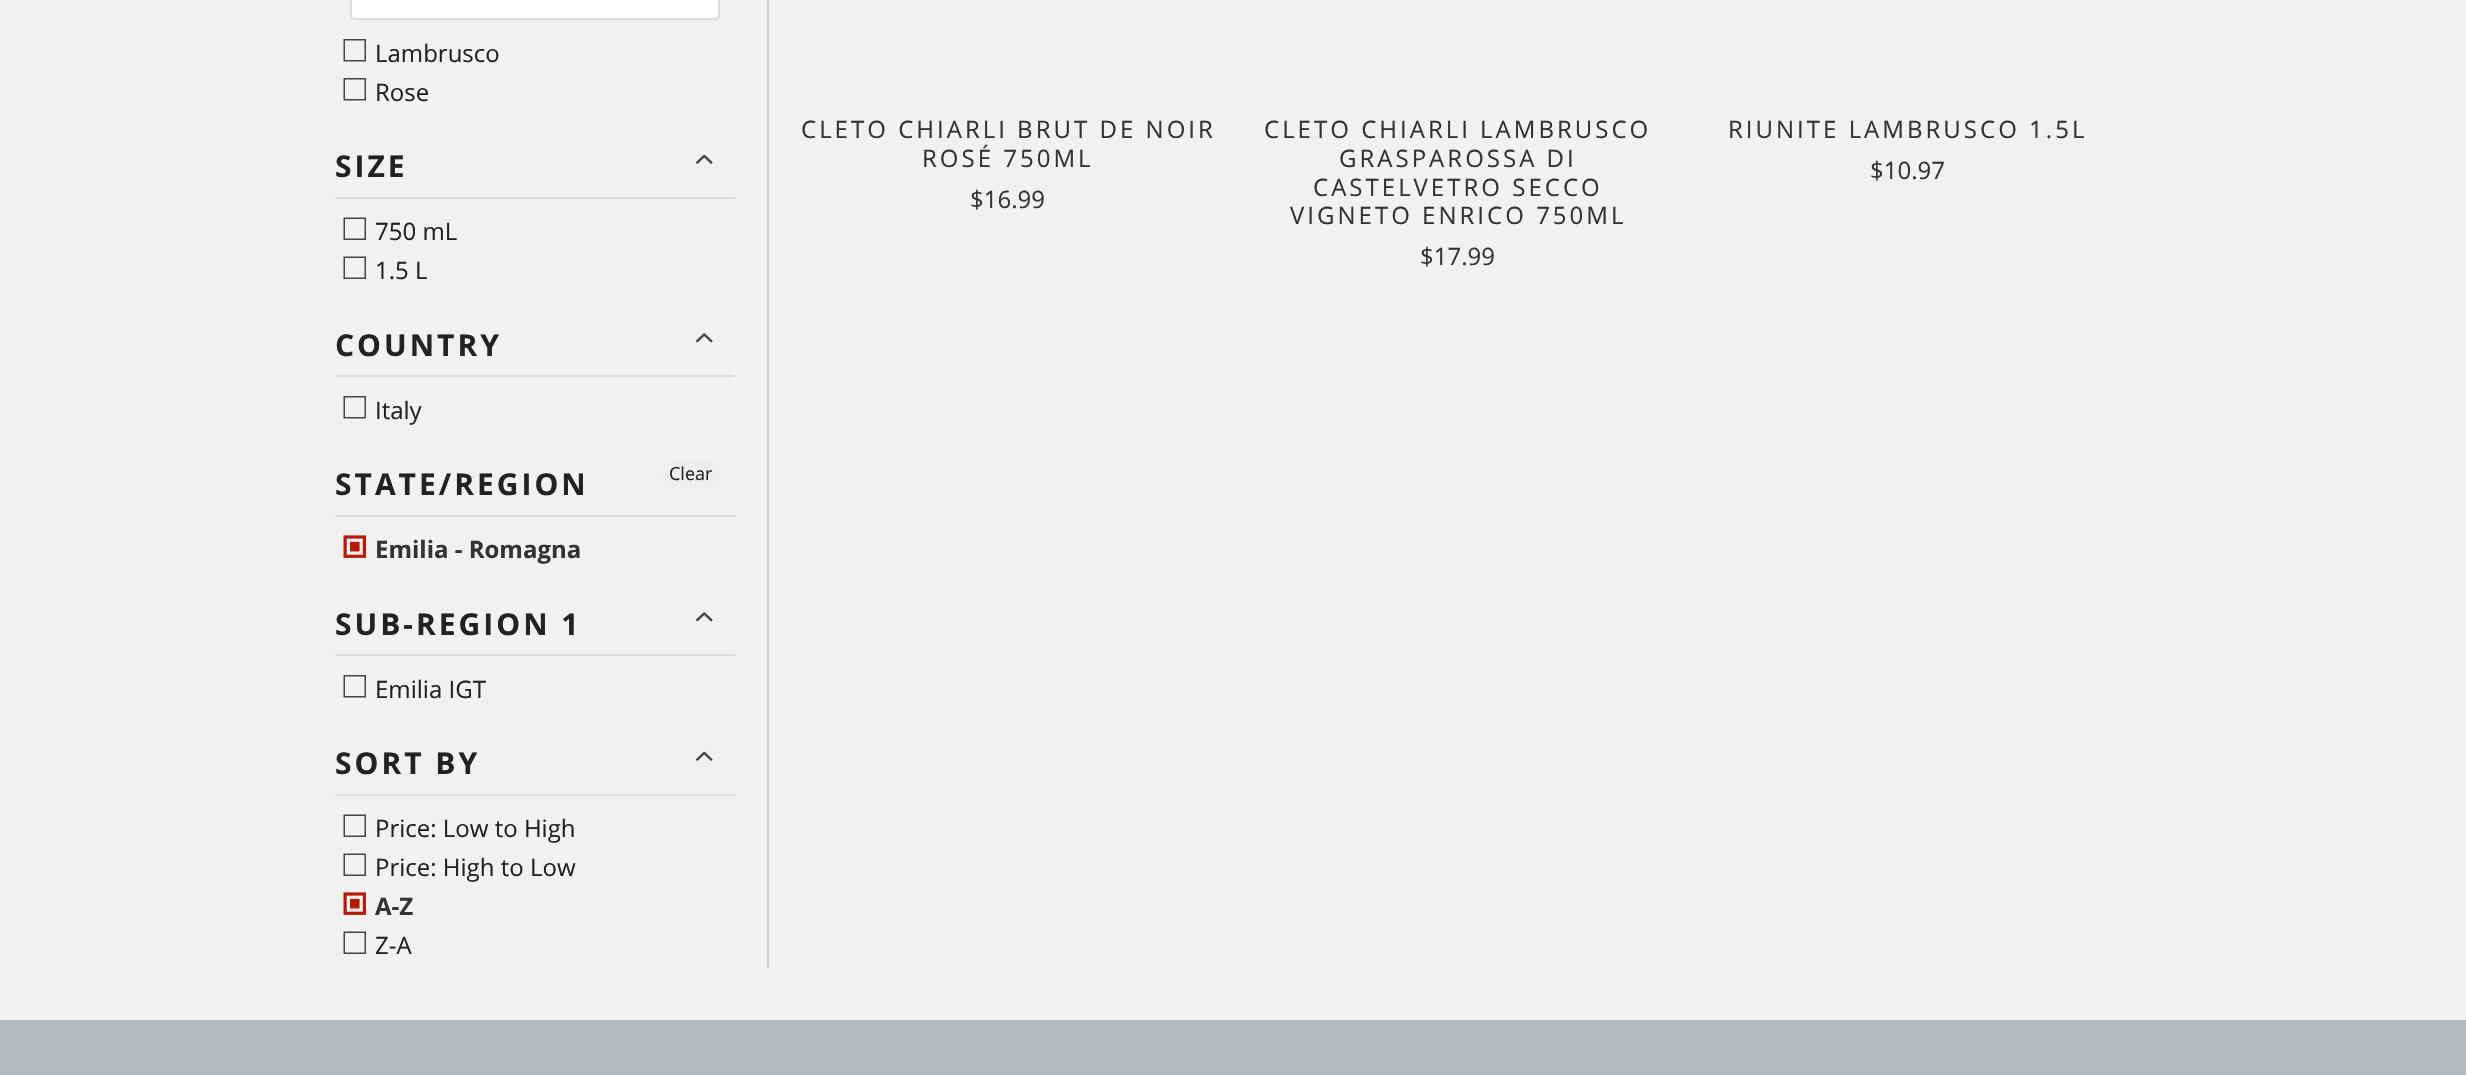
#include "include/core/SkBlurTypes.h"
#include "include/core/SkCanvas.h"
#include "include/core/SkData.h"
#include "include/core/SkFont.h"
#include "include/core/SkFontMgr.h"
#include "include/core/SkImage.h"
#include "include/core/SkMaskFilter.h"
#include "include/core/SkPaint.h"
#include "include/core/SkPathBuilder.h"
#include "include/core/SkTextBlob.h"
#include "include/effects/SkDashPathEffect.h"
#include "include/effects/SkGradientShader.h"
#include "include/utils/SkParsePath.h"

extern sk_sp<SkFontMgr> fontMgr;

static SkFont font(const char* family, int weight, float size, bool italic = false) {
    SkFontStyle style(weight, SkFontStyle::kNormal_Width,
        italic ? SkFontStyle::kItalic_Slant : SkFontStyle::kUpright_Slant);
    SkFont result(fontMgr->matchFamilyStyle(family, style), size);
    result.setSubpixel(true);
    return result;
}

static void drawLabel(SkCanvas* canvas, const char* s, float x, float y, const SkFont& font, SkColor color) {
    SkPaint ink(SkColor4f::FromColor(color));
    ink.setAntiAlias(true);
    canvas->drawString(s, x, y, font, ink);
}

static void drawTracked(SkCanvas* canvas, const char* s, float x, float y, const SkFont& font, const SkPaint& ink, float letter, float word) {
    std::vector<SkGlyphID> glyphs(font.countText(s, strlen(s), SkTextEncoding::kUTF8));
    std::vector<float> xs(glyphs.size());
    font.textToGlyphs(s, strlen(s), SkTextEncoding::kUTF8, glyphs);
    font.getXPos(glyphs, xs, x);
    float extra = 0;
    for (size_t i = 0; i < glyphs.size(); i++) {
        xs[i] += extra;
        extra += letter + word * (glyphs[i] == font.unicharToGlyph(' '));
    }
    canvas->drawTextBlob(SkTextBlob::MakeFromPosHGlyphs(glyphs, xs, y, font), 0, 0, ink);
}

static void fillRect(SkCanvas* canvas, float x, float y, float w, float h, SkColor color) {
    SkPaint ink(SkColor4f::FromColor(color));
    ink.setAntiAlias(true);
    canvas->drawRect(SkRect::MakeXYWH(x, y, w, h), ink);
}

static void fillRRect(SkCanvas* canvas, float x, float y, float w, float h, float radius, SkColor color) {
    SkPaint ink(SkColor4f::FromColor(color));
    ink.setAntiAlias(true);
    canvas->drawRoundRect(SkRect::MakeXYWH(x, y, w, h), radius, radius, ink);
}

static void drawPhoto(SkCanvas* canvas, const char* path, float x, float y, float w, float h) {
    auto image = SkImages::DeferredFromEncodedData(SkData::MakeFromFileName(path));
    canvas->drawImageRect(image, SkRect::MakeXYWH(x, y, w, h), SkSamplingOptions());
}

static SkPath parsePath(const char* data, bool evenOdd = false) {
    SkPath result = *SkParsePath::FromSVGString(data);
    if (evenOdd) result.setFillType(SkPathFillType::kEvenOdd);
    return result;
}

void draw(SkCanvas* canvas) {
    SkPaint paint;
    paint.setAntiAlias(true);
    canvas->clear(0xFFF1F1F1);
    fillRect(canvas, 767, 0, 2, 968, 0xFFCCCCCC);
    paint.setColor(0xFFFFFFFF);
    canvas->drawRoundRect(SkRect::MakeXYWH(351, -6, 368, 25), 4, 4, paint);
    paint.setStroke(true);
    paint.setStrokeWidth(2);
    paint.setColor(0xFFDDDDDD);
    canvas->drawRoundRect(SkRect::MakeXYWH(351, -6, 368, 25), 4, 4, paint);
    paint.setStroke(false);
    paint.setColor(0xFF444444);
    canvas->drawPath(parsePath("M345 40.5V60H364.5V40.5ZM343.5 39H366V61.5H343.5Z"), paint);
    SkFont font1 = font("Open Sans", 400, 24);
    drawLabel(canvas, "Lambrusco", 375, 62, font1, 0xFF222222);
    canvas->drawPath(parsePath("M345 79.5V99H364.5V79.5ZM343.5 78H366V100.5H343.5Z"), paint);
    drawLabel(canvas, "Rose", 375, 101, font1, 0xFF222222);
    fillRect(canvas, 335, 197, 400, 2, 0xFFDDDDDD);
    SkFont font2 = font("Open Sans", 700, 30);
    paint.setColor(0xFF222222);
    drawTracked(canvas, "SIZE", 335, 177, font2, paint, 3, 0);
    drawPhoto(canvas, "assets/img1.png", 696, 154, 17, 10);
    paint.setColor(0xFF444444);
    canvas->drawPath(parsePath("M345 219V238.5H364.5V219ZM343.5 217.5H366V240H343.5Z"), paint);
    drawLabel(canvas, "750 mL", 375, 240, font1, 0xFF222222);
    canvas->drawPath(parsePath("M345 258V277.5H364.5V258ZM343.5 256.5H366V279H343.5Z"), paint);
    drawLabel(canvas, "1.5 L", 375, 279, font1, 0xFF222222);
    fillRect(canvas, 335, 375, 400, 2, 0xFFDDDDDD);
    paint.setColor(0xFF222222);
    drawTracked(canvas, "COUNTRY", 335, 356, font2, paint, 3, 0);
    drawPhoto(canvas, "assets/img2.png", 696, 333, 17, 10);
    paint.setColor(0xFF444444);
    canvas->drawPath(parsePath("M345 397.5V417H364.5V397.5ZM343.5 396H366V418.5H343.5Z"), paint);
    drawLabel(canvas, "Italy", 375, 419, font1, 0xFF222222);
    fillRect(canvas, 335, 515, 400, 2, 0xFFDDDDDD);
    paint.setColor(0xFF222222);
    drawTracked(canvas, "STATE/REGION", 335, 495, font2, paint, 3, 0);
    fillRRect(canvas, 662, 461, 58, 27, 13.5f, 0xFFEEEEEE);
    SkFont font3 = font("Open Sans", 400, 18);
    drawLabel(canvas, "Clear", 669, 480, font3, 0xFF222222);
    drawPhoto(canvas, "assets/img3.png", 343, 535, 23, 23);
    SkFont font4 = font("Open Sans", 700, 24);
    drawLabel(canvas, "Emilia - Romagna", 375, 558, font4, 0xFF333333);
    fillRect(canvas, 335, 654, 400, 2, 0xFFDDDDDD);
    drawTracked(canvas, "SUB-REGION 1", 335, 635, font2, paint, 3, 0);
    drawPhoto(canvas, "assets/img2.png", 696, 612, 17, 10);
    paint.setColor(0xFF444444);
    canvas->drawPath(parsePath("M345 676.5V696H364.5V676.5ZM343.5 675H366V697.5H343.5Z"), paint);
    drawLabel(canvas, "Emilia IGT", 375, 698, font1, 0xFF222222);
    fillRect(canvas, 335, 794, 400, 2, 0xFFDDDDDD);
    paint.setColor(0xFF222222);
    drawTracked(canvas, "SORT BY", 335, 774, font2, paint, 3, 0);
    drawPhoto(canvas, "assets/img1.png", 696, 751, 17, 10);
    paint.setColor(0xFF444444);
    canvas->drawPath(parsePath("M345 816V835.5H364.5V816ZM343.5 814.5H366V837H343.5Z"), paint);
    drawLabel(canvas, "Price: Low to High", 375, 837, font1, 0xFF222222);
    canvas->drawPath(parsePath("M345 855V874.5H364.5V855ZM343.5 853.5H366V876H343.5Z"), paint);
    drawLabel(canvas, "Price: High to Low", 375, 876, font1, 0xFF222222);
    drawPhoto(canvas, "assets/img3.png", 343, 892, 23, 23);
    drawLabel(canvas, "A-Z", 375, 915, font4, 0xFF333333);
    canvas->drawPath(parsePath("M345 933V952.5H364.5V933ZM343.5 931.5H366V954H343.5Z"), paint);
    drawLabel(canvas, "Z-A", 375, 954, font1, 0xFF222222);
    paint.setColor(0xFF333333);
    drawTracked(canvas, "CLETO CHIARLI BRUT DE NOIR", 801, 138, font1, paint, 3, 0);
    drawTracked(canvas, "ROSÉ 750ML", 922, 167, font1, paint, 3, 0);
    drawLabel(canvas, "$16.99", 970, 208, font1, 0xFF333333);
    drawTracked(canvas, "CLETO CHIARLI LAMBRUSCO", 1264, 138, font1, paint, 3, 0);
    drawTracked(canvas, "GRASPAROSSA DI", 1339, 167, font1, paint, 3, 0);
    drawTracked(canvas, "CASTELVETRO SECCO", 1313, 196, font1, paint, 3, 0);
    drawTracked(canvas, "VIGNETO ENRICO 750ML", 1290, 224, font1, paint, 3, 0);
    drawLabel(canvas, "$17.99", 1420, 265, font1, 0xFF333333);
    drawTracked(canvas, "RIUNITE LAMBRUSCO 1.5L", 1728, 138, font1, paint, 3, 0);
    drawLabel(canvas, "$10.97", 1870, 179, font1, 0xFF333333);
    fillRect(canvas, 0, 1020, 2466, 55, 0xFFB4BAC1);
}
